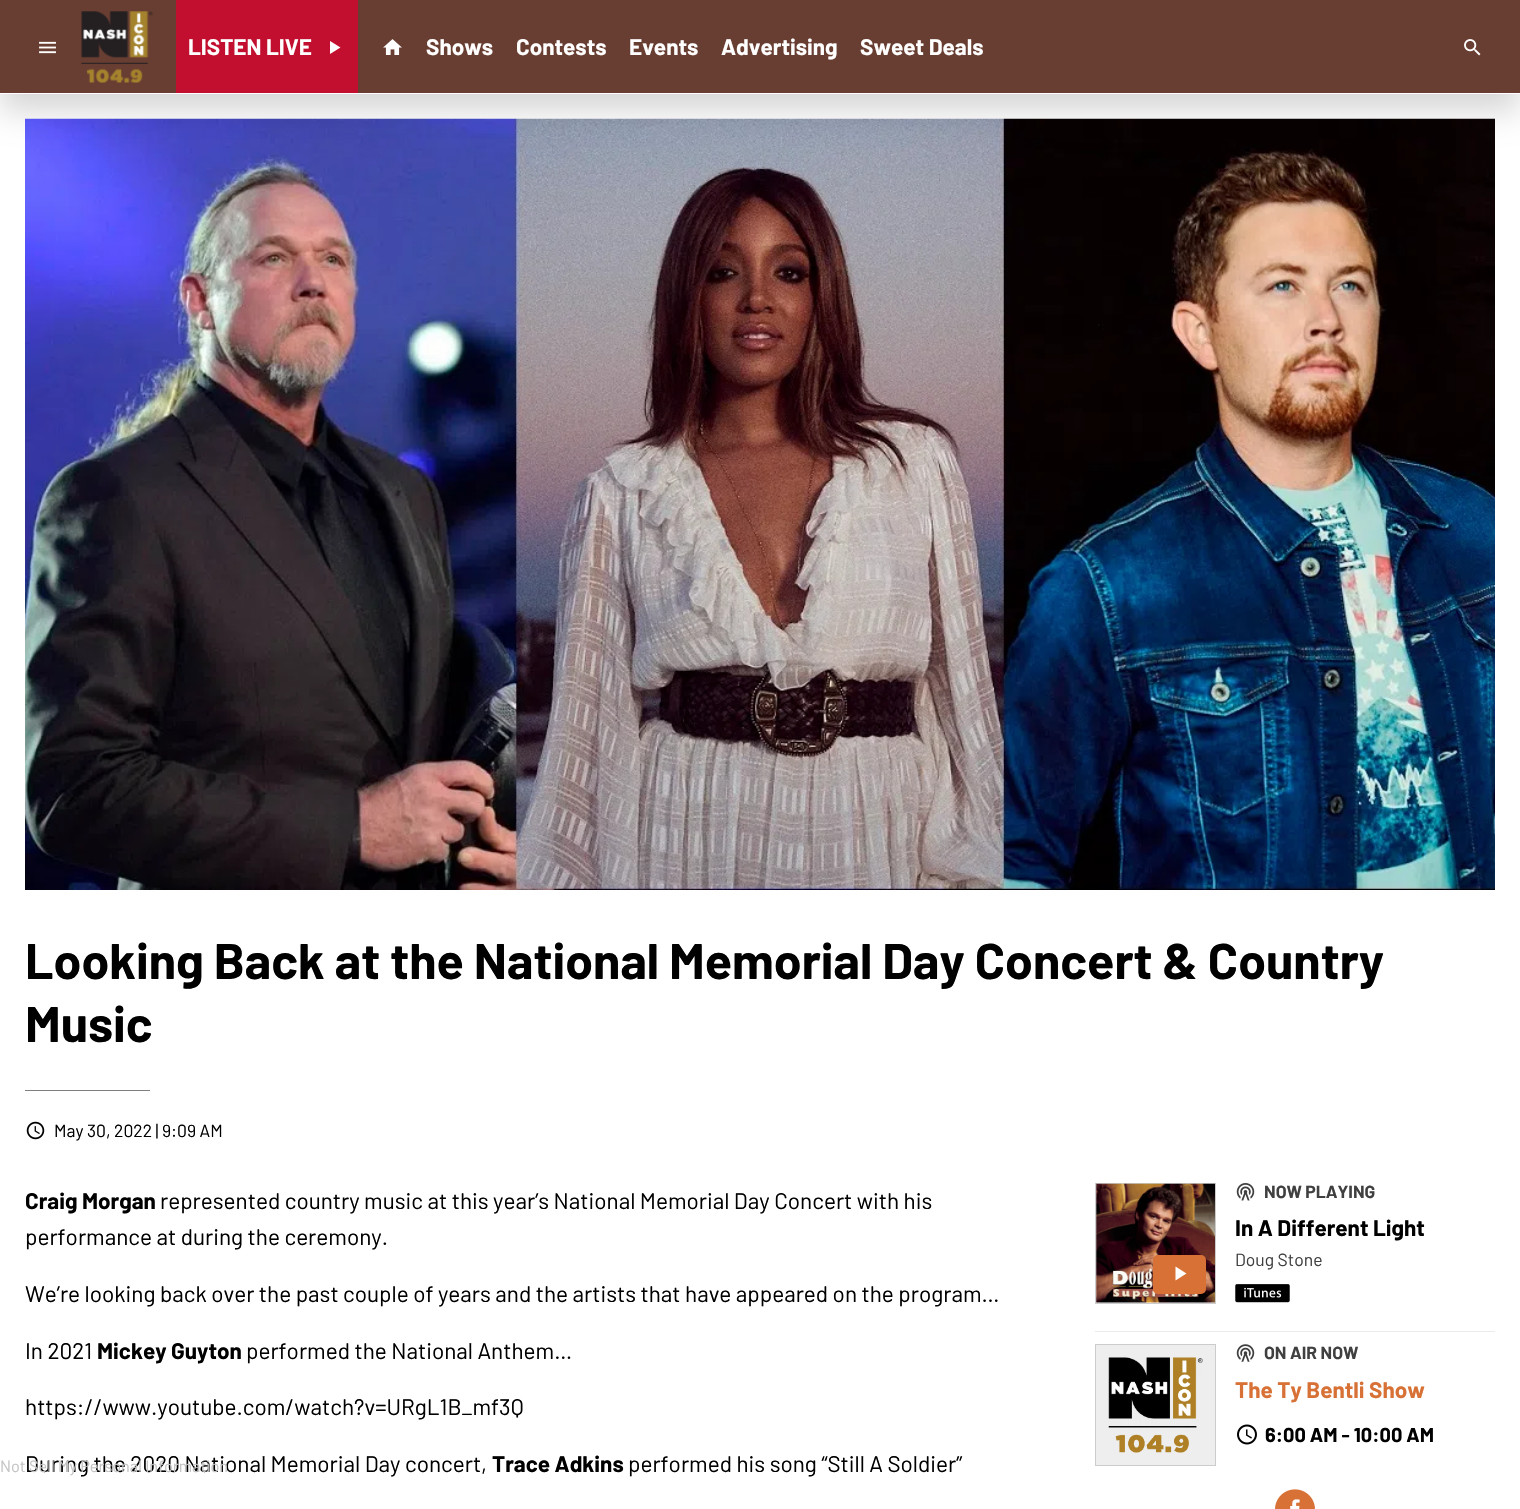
#include "include/core/SkBlurTypes.h"
#include "include/core/SkCanvas.h"
#include "include/core/SkData.h"
#include "include/core/SkFont.h"
#include "include/core/SkFontMgr.h"
#include "include/core/SkImage.h"
#include "include/core/SkMaskFilter.h"
#include "include/core/SkPaint.h"
#include "include/core/SkPathBuilder.h"
#include "include/core/SkTextBlob.h"
#include "include/effects/SkDashPathEffect.h"
#include "include/effects/SkGradientShader.h"
#include "include/utils/SkParsePath.h"

extern sk_sp<SkFontMgr> fontMgr;

static SkFont font(const char* family, int weight, float size, bool italic = false) {
    SkFontStyle style(weight, SkFontStyle::kNormal_Width,
        italic ? SkFontStyle::kItalic_Slant : SkFontStyle::kUpright_Slant);
    SkFont result(fontMgr->matchFamilyStyle(family, style), size);
    result.setSubpixel(true);
    return result;
}

static void drawLabel(SkCanvas* canvas, const char* s, float x, float y, const SkFont& font, SkColor color) {
    SkPaint ink(SkColor4f::FromColor(color));
    ink.setAntiAlias(true);
    canvas->drawString(s, x, y, font, ink);
}

static void fillRect(SkCanvas* canvas, float x, float y, float w, float h, SkColor color) {
    SkPaint ink(SkColor4f::FromColor(color));
    ink.setAntiAlias(true);
    canvas->drawRect(SkRect::MakeXYWH(x, y, w, h), ink);
}

static void fillRRect(SkCanvas* canvas, float x, float y, float w, float h, float radius, SkColor color) {
    SkPaint ink(SkColor4f::FromColor(color));
    ink.setAntiAlias(true);
    canvas->drawRoundRect(SkRect::MakeXYWH(x, y, w, h), radius, radius, ink);
}

static void drawPhoto(SkCanvas* canvas, const char* path, float x, float y, float w, float h) {
    auto image = SkImages::DeferredFromEncodedData(SkData::MakeFromFileName(path));
    canvas->drawImageRect(image, SkRect::MakeXYWH(x, y, w, h), SkSamplingOptions());
}

static SkPath parsePath(const char* data, bool evenOdd = false) {
    SkPath result = *SkParsePath::FromSVGString(data);
    if (evenOdd) result.setFillType(SkPathFillType::kEvenOdd);
    return result;
}

void draw(SkCanvas* canvas) {
    SkPaint paint;
    paint.setAntiAlias(true);
    canvas->clear(0xFFFFFFFF);
    drawPhoto(canvas, "assets/img5.png", 25, 118, 1470, 772);
    paint.setColor(0x29000000);
    paint.setMaskFilter(SkMaskFilter::MakeBlur(kNormal_SkBlurStyle, 15.5f));
    canvas->drawRect(SkRect::MakeXYWH(0, 18, 1520, 93), paint);
    paint.setMaskFilter(nullptr);
    fillRect(canvas, 0, 0, 1520, 93, 0xFF693E32);
    fillRect(canvas, 0, 93, 1520, 1, 0xFFFFFFFF);
    drawPhoto(canvas, "assets/img1.png", 39, 41, 17, 13);
    drawPhoto(canvas, "assets/img2.png", 81, 11, 72, 72);
    fillRect(canvas, 176, 0, 182, 93, 0xFFC20F2F);
    SkFont font1 = font("Barlow", 700, 22.5f);
    drawLabel(canvas, "LISTEN LIVE", 188, 55, font1, 0xFFFFFFFF);
    paint.setColor(0xFFFFFFFF);
    canvas->drawPath(parsePath("M330 41V54L340.5 47.5Z"), paint);
    drawPhoto(canvas, "assets/img3.png", 383, 39, 19, 16);
    drawLabel(canvas, "Shows", 426, 55, font1, 0xFFFFFFFF);
    drawLabel(canvas, "Contests", 516, 55, font1, 0xFFFFFFFF);
    drawLabel(canvas, "Events", 629, 55, font1, 0xFFFFFFFF);
    drawLabel(canvas, "Advertising", 721, 55, font1, 0xFFFFFFFF);
    drawLabel(canvas, "Sweet Deals", 860, 55, font1, 0xFFFFFFFF);
    drawPhoto(canvas, "assets/img4.png", 1464, 39, 17, 17);
    SkFont font2 = font("Barlow", 700, 50);
    drawLabel(canvas, "Looking Back at the National Memorial Day Concert & Country", 25, 979, font2, 0xFF000000);
    drawLabel(canvas, "Music", 25, 1042, font2, 0xFF000000);
    fillRect(canvas, 25, 1090, 125, 1, 0xFF808080);
    drawPhoto(canvas, "assets/img6.png", 26, 1121, 19, 19);
    SkFont font3 = font("Barlow", 400, 17.5f);
    drawLabel(canvas, "May 30, 2022 | 9:09 AM", 54, 1137, font3, 0xFF000000);
    drawLabel(canvas, "Craig Morgan", 25, 1209, font1, 0xFF000000);
    SkFont font4 = font("Barlow", 400, 22.5f);
    drawLabel(canvas, "represented country music at this year’s National Memorial Day Concert with his", 160, 1209, font4, 0xFF000000);
    drawLabel(canvas, "performance at during the ceremony.", 25, 1245, font4, 0xFF000000);
    drawLabel(canvas, "We’re looking back over the past couple of years and the artists that have appeared on the program…", 25, 1302, font4, 0xFF000000);
    drawLabel(canvas, "In 2021", 25, 1359, font4, 0xFF000000);
    drawLabel(canvas, "Mickey Guyton", 97, 1359, font1, 0xFF000000);
    drawLabel(canvas, "performed the National Anthem…", 246, 1359, font4, 0xFF000000);
    drawLabel(canvas, "https://www.youtube.com/watch?v=URgL1B_mf3Q", 25, 1415, font4, 0xFF000000);
    drawLabel(canvas, "During the 2020 National Memorial Day concert,", 25, 1472, font4, 0xFF000000);
    drawLabel(canvas, "Trace Adkins", 492, 1472, font1, 0xFF000000);
    drawLabel(canvas, "performed his song “Still A Soldier”", 628, 1472, font4, 0xFF000000);
    paint.setStroke(true);
    paint.setStrokeWidth(1);
    paint.setColor(0xFFCCCCCC);
    canvas->drawRect(SkRect::MakeXYWH(1095.5f, 1183.5f, 120, 120), paint);
    drawPhoto(canvas, "assets/img7.png", 1096, 1183, 119, 120);
    fillRRect(canvas, 1153, 1255, 53, 39, 5, 0xFFD87135);
    paint.setStroke(false);
    paint.setColor(0xFFFFFFFF);
    canvas->drawPath(parsePath("M1175.5 1266.5V1280.5L1186.5 1273.5Z"), paint);
    drawPhoto(canvas, "assets/img8.png", 1236, 1183, 19, 18);
    SkFont font5 = font("Barlow", 700, 17.5f);
    drawLabel(canvas, "NOW PLAYING", 1264, 1198, font5, 0xFF404040);
    drawLabel(canvas, "In A Different Light", 1235, 1236, font1, 0xFF000000);
    drawLabel(canvas, "Doug Stone", 1235, 1266, font3, 0xFF404040);
    drawPhoto(canvas, "assets/img9.png", 1235, 1284, 55, 19);
    fillRect(canvas, 1095, 1331, 400, 1, 0xFFEBEBEB);
    paint.setColor(0xFFEEEEEE);
    canvas->drawRect(SkRect::MakeXYWH(1095.5f, 1344.5f, 120, 121), paint);
    paint.setStroke(true);
    paint.setColor(0xFFCCCCCC);
    canvas->drawRect(SkRect::MakeXYWH(1095.5f, 1344.5f, 120, 121), paint);
    drawPhoto(canvas, "assets/img10.png", 1108, 1357, 95, 96);
    drawPhoto(canvas, "assets/img11.png", 1236, 1344, 19, 18);
    drawLabel(canvas, "ON AIR NOW", 1264, 1359, font5, 0xFF404040);
    drawLabel(canvas, "The Ty Bentli Show", 1235, 1398, font1, 0xFFD87135);
    drawPhoto(canvas, "assets/img12.png", 1237, 1424, 20, 21);
    SkFont font6 = font("Barlow", 700, 20);
    drawLabel(canvas, "6:00 AM - 10:00 AM", 1265, 1442, font6, 0xFF000000);
    drawPhoto(canvas, "assets/img13.png", 1275, 1489, 40, 20);
    SkFont font7 = font("Barlow", 400, 16.25f);
    drawLabel(canvas, "Not Sell My Personal Information", 0, 1472, font7, 0xFFC4C4C4);
}
